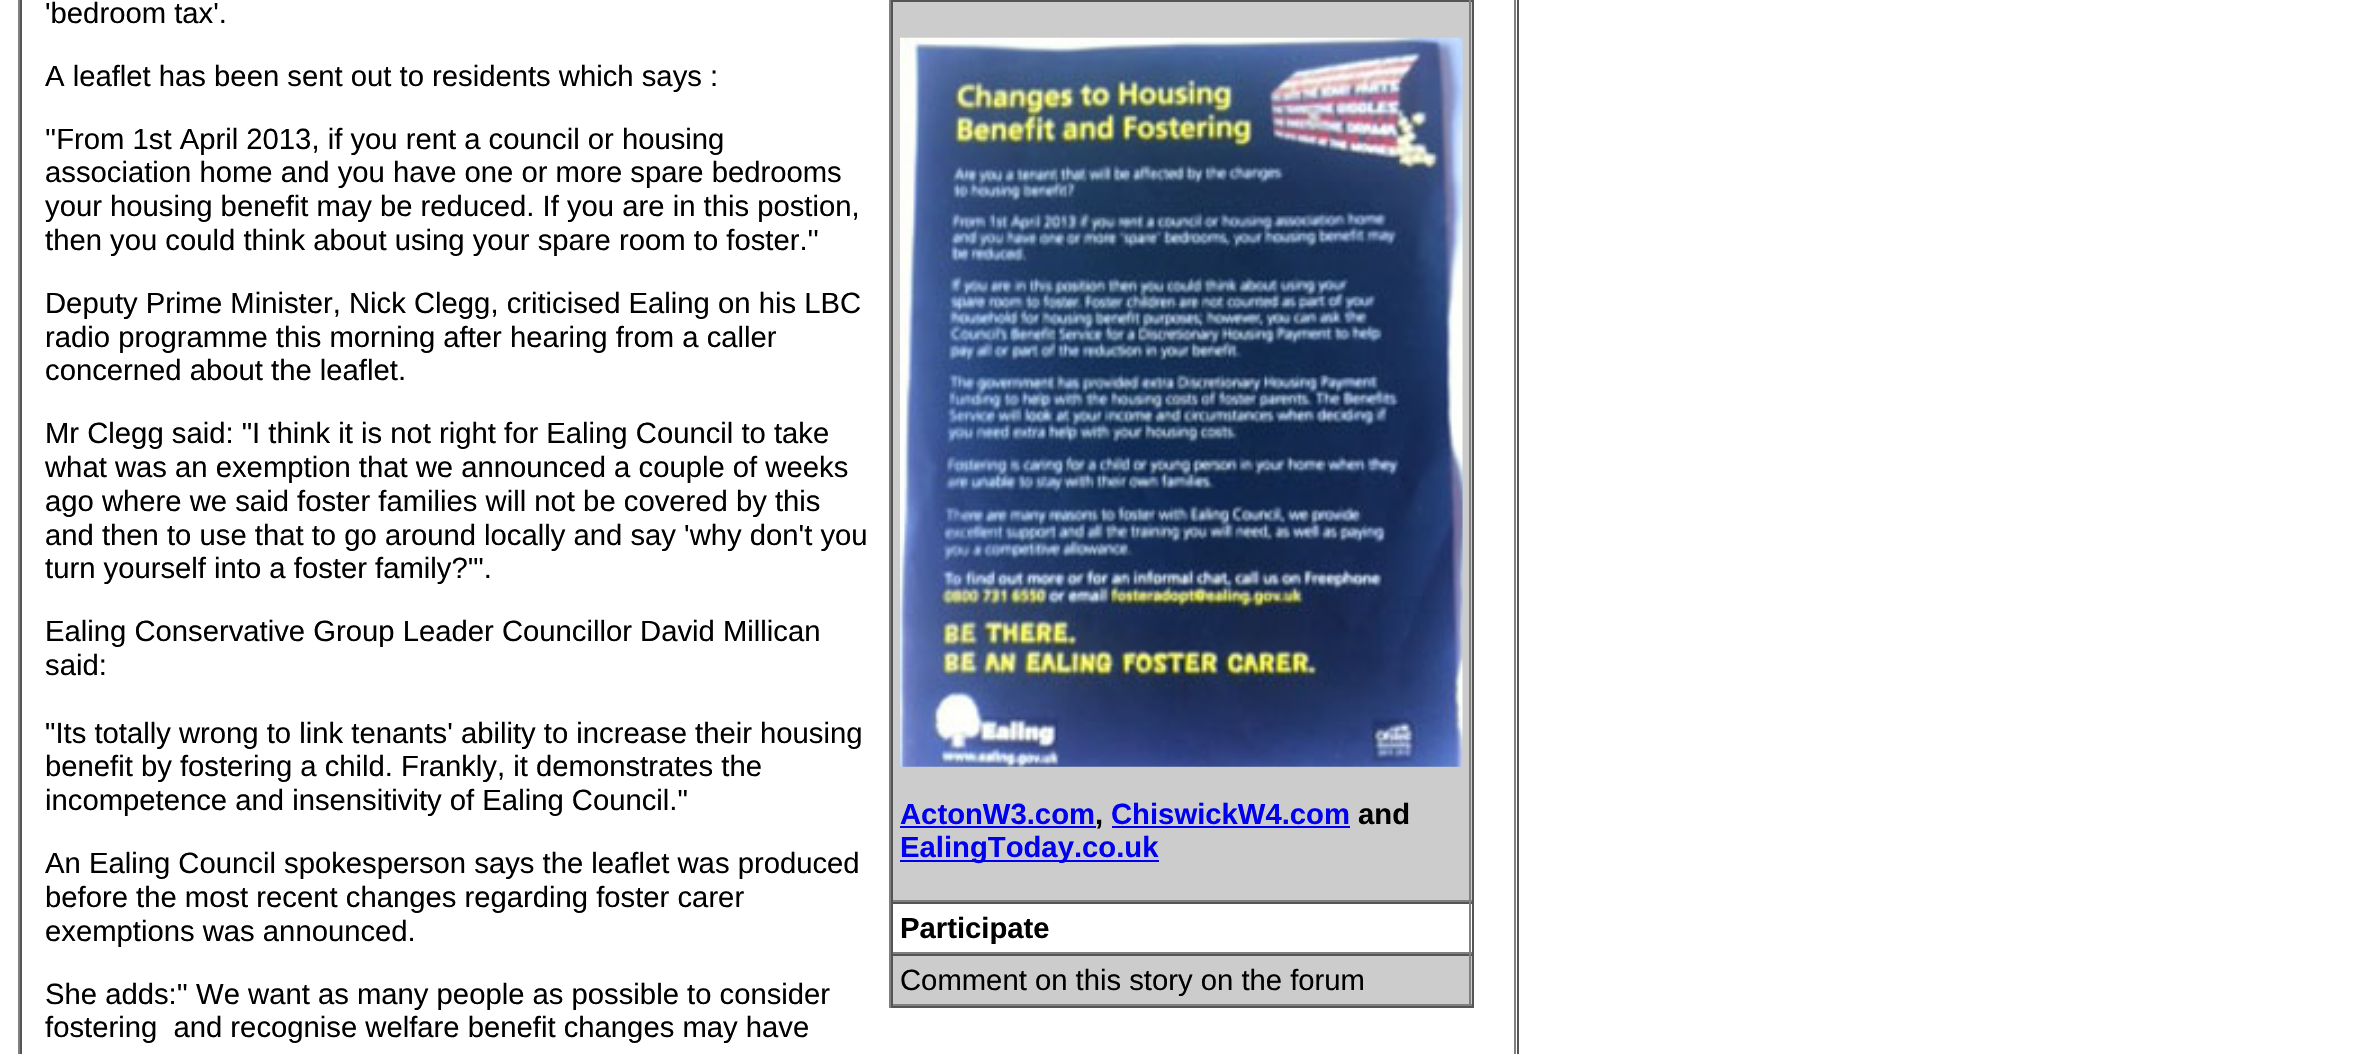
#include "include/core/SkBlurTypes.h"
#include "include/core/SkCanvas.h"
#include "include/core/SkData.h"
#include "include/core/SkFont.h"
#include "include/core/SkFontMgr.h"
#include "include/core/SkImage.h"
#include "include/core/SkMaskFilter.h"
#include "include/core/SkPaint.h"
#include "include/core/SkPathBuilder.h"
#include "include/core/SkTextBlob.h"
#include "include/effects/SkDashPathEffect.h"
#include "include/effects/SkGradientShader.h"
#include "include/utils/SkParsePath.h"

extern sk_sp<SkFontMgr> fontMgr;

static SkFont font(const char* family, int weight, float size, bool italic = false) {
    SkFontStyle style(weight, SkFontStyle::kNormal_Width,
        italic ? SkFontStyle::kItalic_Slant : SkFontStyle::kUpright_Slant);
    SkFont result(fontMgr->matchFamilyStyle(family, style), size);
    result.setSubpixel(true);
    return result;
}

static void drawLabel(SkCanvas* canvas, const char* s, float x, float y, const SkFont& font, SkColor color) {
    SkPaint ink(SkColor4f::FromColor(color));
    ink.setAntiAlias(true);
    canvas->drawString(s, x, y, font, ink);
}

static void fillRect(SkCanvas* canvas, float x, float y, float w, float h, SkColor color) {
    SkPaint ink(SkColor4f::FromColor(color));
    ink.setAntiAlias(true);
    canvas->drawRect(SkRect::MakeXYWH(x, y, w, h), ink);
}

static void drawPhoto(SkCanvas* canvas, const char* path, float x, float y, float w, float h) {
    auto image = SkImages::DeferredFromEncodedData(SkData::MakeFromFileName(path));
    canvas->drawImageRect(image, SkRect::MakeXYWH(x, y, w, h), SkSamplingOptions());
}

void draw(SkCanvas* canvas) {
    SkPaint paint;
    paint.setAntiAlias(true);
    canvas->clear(0xFFFFFFFF);
    fillRect(canvas, 1517, 0, 2, 1054, 0xFF555555);
    fillRect(canvas, 18, 0, 2, 1054, 0xFF808080);
    fillRect(canvas, 1514, 0, 2, 1054, 0xFF808080);
    fillRect(canvas, 20, 0, 2, 1054, 0xFF555555);
    SkFont font1 = font("Liberation Sans", 400, 29.25f);
    drawLabel(canvas, "'bedroom tax'.", 45, 23, font1, 0xFF000000);
    drawLabel(canvas, "A leaflet has been sent out to residents which says :", 45, 86, font1, 0xFF000000);
    drawLabel(canvas, "''From 1st April 2013, if you rent a council or housing", 45, 149, font1, 0xFF000000);
    drawLabel(canvas, "association home and you have one or more spare bedrooms", 45, 182, font1, 0xFF000000);
    drawLabel(canvas, "your housing benefit may be reduced. If you are in this postion,", 45, 216, font1, 0xFF000000);
    drawLabel(canvas, "then you could think about using your spare room to foster.''", 45, 250, font1, 0xFF000000);
    drawLabel(canvas, "Deputy Prime Minister, Nick Clegg, criticised Ealing on his LBC", 45, 313, font1, 0xFF000000);
    drawLabel(canvas, "radio programme this morning after hearing from a caller", 45, 347, font1, 0xFF000000);
    drawLabel(canvas, "concerned about the leaflet.", 45, 380, font1, 0xFF000000);
    drawLabel(canvas, "Mr Clegg said: \"I think it is not right for Ealing Council to take", 45, 443, font1, 0xFF000000);
    drawLabel(canvas, "what was an exemption that we announced a couple of weeks", 45, 477, font1, 0xFF000000);
    drawLabel(canvas, "ago where we said foster families will not be covered by this", 45, 511, font1, 0xFF000000);
    drawLabel(canvas, "and then to use that to go around locally and say 'why don't you", 45, 545, font1, 0xFF000000);
    drawLabel(canvas, "turn yourself into a foster family?'\".", 45, 578, font1, 0xFF000000);
    drawLabel(canvas, "Ealing Conservative Group Leader Councillor David Millican", 45, 641, font1, 0xFF000000);
    drawLabel(canvas, "said:", 45, 675, font1, 0xFF000000);
    drawLabel(canvas, "\"Its totally wrong to link tenants' ability to increase their housing", 45, 743, font1, 0xFF000000);
    drawLabel(canvas, "benefit by fostering a child. Frankly, it demonstrates the", 45, 776, font1, 0xFF000000);
    drawLabel(canvas, "incompetence and insensitivity of Ealing Council.\"", 45, 810, font1, 0xFF000000);
    drawLabel(canvas, "An Ealing Council spokesperson says the leaflet was produced", 45, 873, font1, 0xFF000000);
    drawLabel(canvas, "before the most recent changes regarding foster carer", 45, 907, font1, 0xFF000000);
    drawLabel(canvas, "exemptions was announced.", 45, 941, font1, 0xFF000000);
    fillRect(canvas, 1472, 0, 2, 1008, 0xFF555555);
    fillRect(canvas, 889, 1006, 585, 2, 0xFF555555);
    fillRect(canvas, 889, 0, 2, 1008, 0xFF808080);
    fillRect(canvas, 893, 2, 579, 898, 0xFFCCCCCC);
    fillRect(canvas, 891, 0, 581, 2, 0xFF555555);
    fillRect(canvas, 1469, 0, 2, 902, 0xFF808080);
    fillRect(canvas, 891, 900, 581, 2, 0xFF808080);
    fillRect(canvas, 891, 0, 2, 902, 0xFF555555);
    drawPhoto(canvas, "assets/img1.png", 900, 37, 563, 730);
    SkFont font2 = font("Liberation Sans", 700, 29.25f);
    drawLabel(canvas, "ActonW3.com", 900, 824, font2, 0xFF0000EE);
    drawLabel(canvas, ",", 1095, 824, font2, 0xFF000000);
    fillRect(canvas, 900, 826, 196, 2, 0xFF0000EE);
    fillRect(canvas, 1112, 826, 238, 2, 0xFF0000EE);
    drawLabel(canvas, "ChiswickW4.com", 1111, 824, font2, 0xFF0000EE);
    drawLabel(canvas, "and", 1358, 824, font2, 0xFF000000);
    fillRect(canvas, 900, 860, 259, 2, 0xFF0000EE);
    drawLabel(canvas, "EalingToday.co.uk", 900, 857, font2, 0xFF0000EE);
    fillRect(canvas, 891, 902, 581, 2, 0xFF555555);
    fillRect(canvas, 1469, 902, 2, 52, 0xFF808080);
    fillRect(canvas, 891, 952, 581, 2, 0xFF808080);
    fillRect(canvas, 891, 902, 2, 52, 0xFF555555);
    drawLabel(canvas, "Participate", 900, 938, font2, 0xFF000000);
    fillRect(canvas, 893, 956, 579, 48, 0xFFCCCCCC);
    fillRect(canvas, 891, 954, 581, 2, 0xFF555555);
    fillRect(canvas, 1469, 954, 2, 52, 0xFF808080);
    fillRect(canvas, 891, 1004, 581, 2, 0xFF808080);
    fillRect(canvas, 891, 954, 2, 52, 0xFF555555);
    drawLabel(canvas, "Comment on this story on the forum", 900, 990, font1, 0xFF000000);
    drawLabel(canvas, "She adds:'' We want as many people as possible to consider", 45, 1004, font1, 0xFF000000);
    drawLabel(canvas, "fostering  and recognise welfare benefit changes may have", 45, 1037, font1, 0xFF000000);
}
